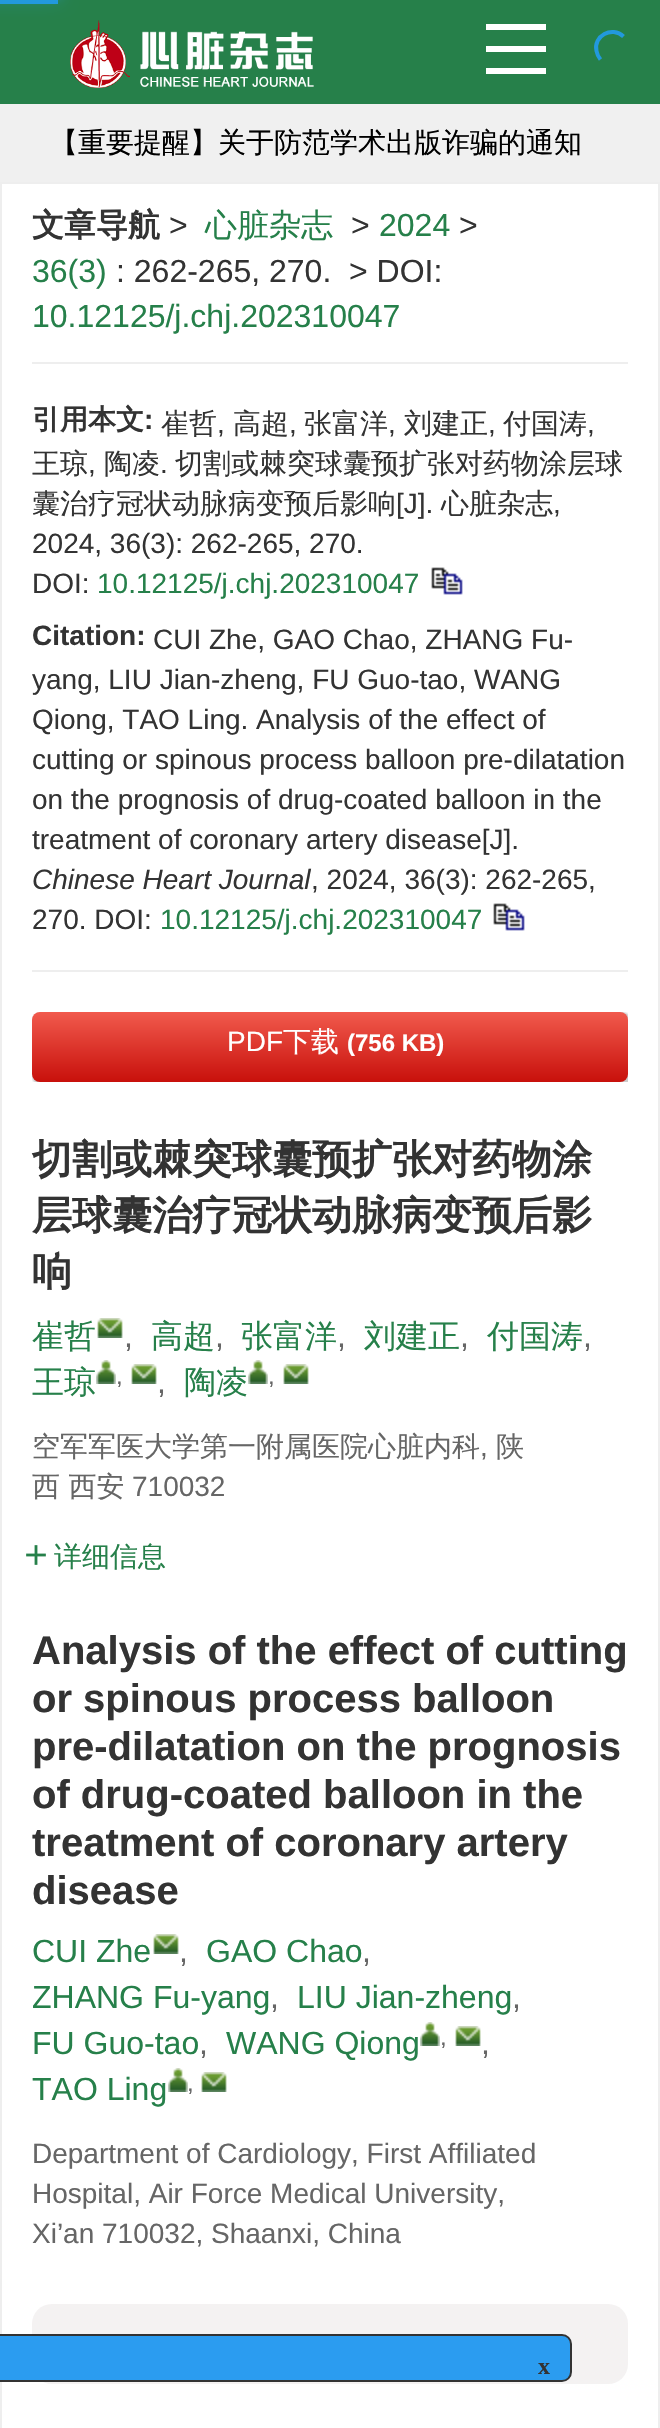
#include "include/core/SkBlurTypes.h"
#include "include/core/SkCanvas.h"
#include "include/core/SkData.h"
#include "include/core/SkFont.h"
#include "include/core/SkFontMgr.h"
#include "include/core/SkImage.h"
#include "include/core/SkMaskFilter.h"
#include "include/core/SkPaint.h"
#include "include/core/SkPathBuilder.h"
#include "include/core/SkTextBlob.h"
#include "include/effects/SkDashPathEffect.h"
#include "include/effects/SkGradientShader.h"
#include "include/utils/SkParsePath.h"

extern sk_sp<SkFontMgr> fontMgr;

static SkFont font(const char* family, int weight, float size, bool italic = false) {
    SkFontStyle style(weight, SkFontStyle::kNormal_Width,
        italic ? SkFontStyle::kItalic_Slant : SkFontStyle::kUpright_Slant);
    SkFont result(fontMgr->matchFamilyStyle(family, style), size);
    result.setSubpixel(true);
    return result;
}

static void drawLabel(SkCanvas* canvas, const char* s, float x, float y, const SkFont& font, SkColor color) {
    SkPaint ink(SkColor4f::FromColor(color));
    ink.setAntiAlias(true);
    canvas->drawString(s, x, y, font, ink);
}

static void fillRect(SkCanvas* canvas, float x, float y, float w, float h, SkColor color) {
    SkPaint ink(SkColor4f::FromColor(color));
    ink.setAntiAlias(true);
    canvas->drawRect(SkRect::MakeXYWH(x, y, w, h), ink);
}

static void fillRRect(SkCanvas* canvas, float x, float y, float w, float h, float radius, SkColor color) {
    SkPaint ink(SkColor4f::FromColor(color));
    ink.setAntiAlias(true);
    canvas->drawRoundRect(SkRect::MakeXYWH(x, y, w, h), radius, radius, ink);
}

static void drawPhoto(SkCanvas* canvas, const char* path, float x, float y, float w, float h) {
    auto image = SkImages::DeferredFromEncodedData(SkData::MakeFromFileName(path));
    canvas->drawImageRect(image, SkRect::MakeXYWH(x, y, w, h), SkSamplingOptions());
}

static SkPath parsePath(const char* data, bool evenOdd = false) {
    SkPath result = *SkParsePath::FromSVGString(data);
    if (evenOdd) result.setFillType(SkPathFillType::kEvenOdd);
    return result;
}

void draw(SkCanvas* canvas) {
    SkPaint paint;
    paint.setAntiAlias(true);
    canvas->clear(0xFFFFFFFF);
    fillRect(canvas, 0, 0, 660, 104, 0xFF26804A);
    fillRect(canvas, 0, 0, 58, 4, 0xFF2299DD);
    paint.setColor(0xFF2299DD);
    paint.setMaskFilter(SkMaskFilter::MakeBlur(kNormal_SkBlurStyle, 5));
    canvas->drawRect(SkRect::MakeXYWH(-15, -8, 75, 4), paint);
    paint.setMaskFilter(nullptr);
    drawPhoto(canvas, "assets/img1.png", 70, 20, 244, 68);
    paint.setMaskFilter(SkMaskFilter::MakeBlur(kNormal_SkBlurStyle, 10));
    canvas->drawRect(SkRect::MakeXYWH(-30, -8, 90, 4), paint);
    paint.setMaskFilter(nullptr);
    paint.setStroke(true);
    paint.setStrokeWidth(4);
    canvas->drawPath(parsePath("M600.5 59.5C598.5 57 597 54 596.5 51C593 36 612 25.5 623.5 36.5"), paint);
    fillRect(canvas, 486, 24, 60, 6, 0xFFFFFFFF);
    fillRect(canvas, 486, 46, 60, 6, 0xFFFFFFFF);
    fillRect(canvas, 486, 68, 60, 6, 0xFFFFFFFF);
    fillRect(canvas, 0, 104, 660, 78, 0xFFF0F0F0);
    SkFont font1 = font("WenQuanYi Zen Hei", 500, 28);
    drawLabel(canvas, "【重要提醒】关于防范学术出版诈骗的通知", 50, 152, font1, 0xFF000000);
    paint.setStrokeWidth(2);
    paint.setColor(0xFFEEEEEE);
    canvas->drawRect(SkRect::MakeXYWH(1, 183, 658, 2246), paint);
    fillRect(canvas, 32, 362, 596, 2, 0xFFEEEEEE);
    SkFont font2 = font("WenQuanYi Zen Hei", 700, 32);
    drawLabel(canvas, "文章导航", 32, 236, font2, 0xFF333333);
    SkFont font3 = font("Liberation Sans", 400, 32);
    drawLabel(canvas, ">", 169, 236, font3, 0xFF333333);
    SkFont font4 = font("WenQuanYi Zen Hei", 500, 32);
    drawLabel(canvas, "心脏杂志", 205, 236, font4, 0xFF26804A);
    drawLabel(canvas, ">", 351, 236, font3, 0xFF333333);
    drawLabel(canvas, "2024", 379, 236, font3, 0xFF26804A);
    drawLabel(canvas, ">", 459, 236, font3, 0xFF333333);
    drawLabel(canvas, "36(3)", 32, 282, font3, 0xFF26804A);
    drawLabel(canvas, ": 262-265, 270.", 116, 282, font3, 0xFF333333);
    drawLabel(canvas, "> DOI:", 349, 282, font3, 0xFF333333);
    drawLabel(canvas, "10.12125/j.chj.202310047", 32, 327, font3, 0xFF26804A);
    fillRect(canvas, 32, 970, 596, 2, 0xFFEEEEEE);
    SkFont font5 = font("WenQuanYi Zen Hei", 700, 28);
    drawLabel(canvas, "引用本文", 32, 429, font5, 0xFF333333);
    drawLabel(canvas, "崔哲", 161, 433, font1, 0xFF333333);
    SkFont font6 = font("Liberation Sans", 400, 28);
    drawLabel(canvas, ",", 217, 433, font6, 0xFF333333);
    drawLabel(canvas, "高超", 233, 433, font1, 0xFF333333);
    drawLabel(canvas, ",", 289, 433, font6, 0xFF333333);
    drawLabel(canvas, "张富洋", 304, 433, font1, 0xFF333333);
    drawLabel(canvas, ",", 388, 433, font6, 0xFF333333);
    drawLabel(canvas, "刘建正", 404, 433, font1, 0xFF333333);
    drawLabel(canvas, ",", 488, 433, font6, 0xFF333333);
    drawLabel(canvas, "付国涛", 503, 433, font1, 0xFF333333);
    drawLabel(canvas, ",", 587, 433, font6, 0xFF333333);
    drawLabel(canvas, "王琼", 32, 473, font1, 0xFF333333);
    drawLabel(canvas, ",", 88, 473, font6, 0xFF333333);
    drawLabel(canvas, "陶凌", 104, 473, font1, 0xFF333333);
    drawLabel(canvas, ".", 160, 473, font6, 0xFF333333);
    drawLabel(canvas, "切割或棘突球囊预扩张对药物涂层球", 175, 473, font1, 0xFF333333);
    drawLabel(canvas, "囊治疗冠状动脉病变预后影响", 32, 513, font1, 0xFF333333);
    drawLabel(canvas, "[J].", 396, 513, font6, 0xFF333333);
    drawLabel(canvas, "心脏杂志", 441, 513, font1, 0xFF333333);
    drawLabel(canvas, ",", 553, 513, font6, 0xFF333333);
    drawLabel(canvas, "2024, 36(3): 262-265, 270.", 32, 553, font6, 0xFF333333);
    drawLabel(canvas, "DOI:", 32, 593, font6, 0xFF333333);
    drawLabel(canvas, "10.12125/j.chj.202310047", 97, 593, font6, 0xFF26804A);
    drawPhoto(canvas, "assets/img2.png", 431, 567, 32, 28);
    SkFont font7 = font("Liberation Sans", 700, 28);
    drawLabel(canvas, ":", 144, 429, font7, 0xFF333333);
    drawLabel(canvas, "Citation:", 32, 645, font7, 0xFF333333);
    drawLabel(canvas, "CUI Zhe, GAO Chao, ZHANG Fu-", 153, 649, font6, 0xFF333333);
    drawLabel(canvas, "yang, LIU Jian-zheng, FU Guo-tao, WANG", 32, 689, font6, 0xFF333333);
    drawLabel(canvas, "Qiong, TAO Ling. Analysis of the effect of", 32, 729, font6, 0xFF333333);
    drawLabel(canvas, "cutting or spinous process balloon pre-dilatation", 32, 769, font6, 0xFF333333);
    drawLabel(canvas, "on the prognosis of drug-coated balloon in the", 32, 809, font6, 0xFF333333);
    drawLabel(canvas, "treatment of coronary artery disease[J].", 32, 849, font6, 0xFF333333);
    SkFont font8 = font("Liberation Sans", 400, 28, true);
    drawLabel(canvas, "Chinese Heart Journal", 32, 889, font8, 0xFF333333);
    drawLabel(canvas, ", 2024, 36(3): 262-265,", 311, 889, font6, 0xFF333333);
    drawLabel(canvas, "270. DOI:", 32, 929, font6, 0xFF333333);
    drawLabel(canvas, "10.12125/j.chj.202310047", 160, 929, font6, 0xFF26804A);
    drawPhoto(canvas, "assets/img2.png", 493, 903, 32, 28);
    canvas->save();
    canvas->clipRect(SkRect::MakeXYWH(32, 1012, 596, 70));
    paint.setStroke(false);
    paint.setColor(0x33000000);
    paint.setMaskFilter(SkMaskFilter::MakeBlur(kNormal_SkBlurStyle, 1));
    canvas->drawRoundRect(SkRect::MakeXYWH(32, 1012, 600, 74), 10, 10, paint);
    paint.setMaskFilter(nullptr);
    canvas->restore();
    {
        const SkColor colors[] = {0xFFF15A4D, 0xFFC8100B};
        const float stops[] = {0, 1};
        const SkPoint ends[] = {{330, 1012}, {330, 1082}};
        paint.setShader(SkGradientShader::MakeLinear(ends, colors, stops, 2, SkTileMode::kClamp));
        paint.setAlpha(255);
    }
    canvas->drawRoundRect(SkRect::MakeXYWH(32, 1012, 596, 70), 8, 8, paint);
    drawLabel(canvas, "PDF", 227, 1051, font6, 0xFFFFFFFF);
    drawLabel(canvas, "下载", 283, 1051, font1, 0xFFFFFFFF);
    SkFont font9 = font("Liberation Sans", 700, 24);
    drawLabel(canvas, "(756 KB)", 347, 1051, font9, 0xFFFFFFFF);
    SkFont font10 = font("WenQuanYi Zen Hei", 700, 40);
    drawLabel(canvas, "切割或棘突球囊预扩张对药物涂", 32, 1173, font10, 0xFF333333);
    drawLabel(canvas, "层球囊治疗冠状动脉病变预后影", 32, 1229, font10, 0xFF333333);
    drawLabel(canvas, "响", 32, 1285, font10, 0xFF333333);
    drawLabel(canvas, "崔哲", 32, 1347, font4, 0xFF26804A);
    drawPhoto(canvas, "assets/img3.png", 97, 1318, 26, 20);
    drawLabel(canvas, ",", 124, 1347, font3, 0xFF666666);
    drawLabel(canvas, "高超", 151, 1347, font4, 0xFF26804A);
    drawLabel(canvas, ",", 215, 1347, font3, 0xFF666666);
    drawLabel(canvas, "张富洋", 241, 1347, font4, 0xFF26804A);
    drawLabel(canvas, ",", 337, 1347, font3, 0xFF666666);
    drawLabel(canvas, "刘建正", 364, 1347, font4, 0xFF26804A);
    drawLabel(canvas, ",", 460, 1347, font3, 0xFF666666);
    drawLabel(canvas, "付国涛", 487, 1347, font4, 0xFF26804A);
    drawLabel(canvas, ",", 583, 1347, font3, 0xFF666666);
    drawLabel(canvas, "王琼", 32, 1393, font4, 0xFF26804A);
    drawPhoto(canvas, "assets/img4.png", 96, 1360, 20, 24);
    SkFont font11 = font("Liberation Sans", 400, 24);
    drawLabel(canvas, ",", 116, 1384, font11, 0xFF666666);
    drawPhoto(canvas, "assets/img3.png", 131, 1364, 26, 20);
    drawLabel(canvas, ",", 157, 1393, font3, 0xFF666666);
    drawLabel(canvas, "陶凌", 184, 1393, font4, 0xFF26804A);
    drawPhoto(canvas, "assets/img4.png", 248, 1360, 20, 24);
    drawLabel(canvas, ",", 268, 1384, font11, 0xFF666666);
    drawPhoto(canvas, "assets/img3.png", 283, 1364, 26, 20);
    drawLabel(canvas, "空军军医大学第一附属医院心脏内科", 32, 1456, font1, 0xFF666666);
    drawLabel(canvas, ",", 480, 1456, font6, 0xFF666666);
    drawLabel(canvas, "陕", 496, 1456, font1, 0xFF666666);
    drawLabel(canvas, "西 西安", 32, 1496, font1, 0xFF666666);
    drawLabel(canvas, "710032", 132, 1496, font6, 0xFF666666);
    drawPhoto(canvas, "assets/img5.png", 26, 1545, 20, 20);
    drawLabel(canvas, "详细信息", 54, 1566, font1, 0xFF26804A);
    SkFont font12 = font("Liberation Sans", 700, 40);
    drawLabel(canvas, "Analysis of the effect of cutting", 32, 1664, font12, 0xFF333333);
    drawLabel(canvas, "or spinous process balloon", 32, 1712, font12, 0xFF333333);
    drawLabel(canvas, "pre-dilatation on the prognosis", 32, 1760, font12, 0xFF333333);
    drawLabel(canvas, "of drug-coated balloon in the", 32, 1808, font12, 0xFF333333);
    drawLabel(canvas, "treatment of coronary artery", 32, 1856, font12, 0xFF333333);
    drawLabel(canvas, "disease", 32, 1904, font12, 0xFF333333);
    drawLabel(canvas, "CUI Zhe", 32, 1962, font3, 0xFF26804A);
    drawPhoto(canvas, "assets/img3.png", 153, 1934, 26, 20);
    drawLabel(canvas, ",", 179, 1962, font3, 0xFF666666);
    drawLabel(canvas, "GAO Chao", 206, 1962, font3, 0xFF26804A);
    drawLabel(canvas, ",", 362, 1962, font3, 0xFF666666);
    drawLabel(canvas, "ZHANG Fu-yang", 32, 2008, font3, 0xFF26804A);
    drawLabel(canvas, ",", 270, 2008, font3, 0xFF666666);
    drawLabel(canvas, "LIU Jian-zheng", 297, 2008, font3, 0xFF26804A);
    drawLabel(canvas, ",", 512, 2008, font3, 0xFF666666);
    drawLabel(canvas, "FU Guo-tao", 32, 2054, font3, 0xFF26804A);
    drawLabel(canvas, ",", 199, 2054, font3, 0xFF666666);
    drawLabel(canvas, "WANG Qiong", 226, 2054, font3, 0xFF26804A);
    drawPhoto(canvas, "assets/img4.png", 420, 2022, 20, 24);
    drawLabel(canvas, ",", 440, 2045, font11, 0xFF666666);
    drawPhoto(canvas, "assets/img3.png", 455, 2026, 26, 20);
    drawLabel(canvas, ",", 481, 2054, font3, 0xFF666666);
    drawLabel(canvas, "TAO Ling", 32, 2100, font3, 0xFF26804A);
    drawPhoto(canvas, "assets/img4.png", 168, 2068, 20, 24);
    drawLabel(canvas, ",", 187, 2091, font11, 0xFF666666);
    drawPhoto(canvas, "assets/img3.png", 201, 2072, 26, 20);
    drawLabel(canvas, "Department of Cardiology, First Affiliated", 32, 2163, font6, 0xFF666666);
    drawLabel(canvas, "Hospital, Air Force Medical University,", 32, 2203, font6, 0xFF666666);
    drawLabel(canvas, "Xi’an 710032, Shaanxi, China", 32, 2243, font6, 0xFF666666);
    fillRRect(canvas, 32, 2304, 596, 80, 20, 0xFFF4F2F2);
    paint.setShader(nullptr);
    paint.setColor(0xFF2B9CF0);
    canvas->drawRoundRect(SkRect::MakeXYWH(-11, 2335, 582, 46), 9, 9, paint);
    paint.setStroke(true);
    paint.setColor(0xFF333333);
    canvas->drawRoundRect(SkRect::MakeXYWH(-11, 2335, 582, 46), 9, 9, paint);
    SkFont font13 = font("Liberation Serif", 700, 24);
    drawLabel(canvas, "x", 538, 2374, font13, 0xFF333333);
}
